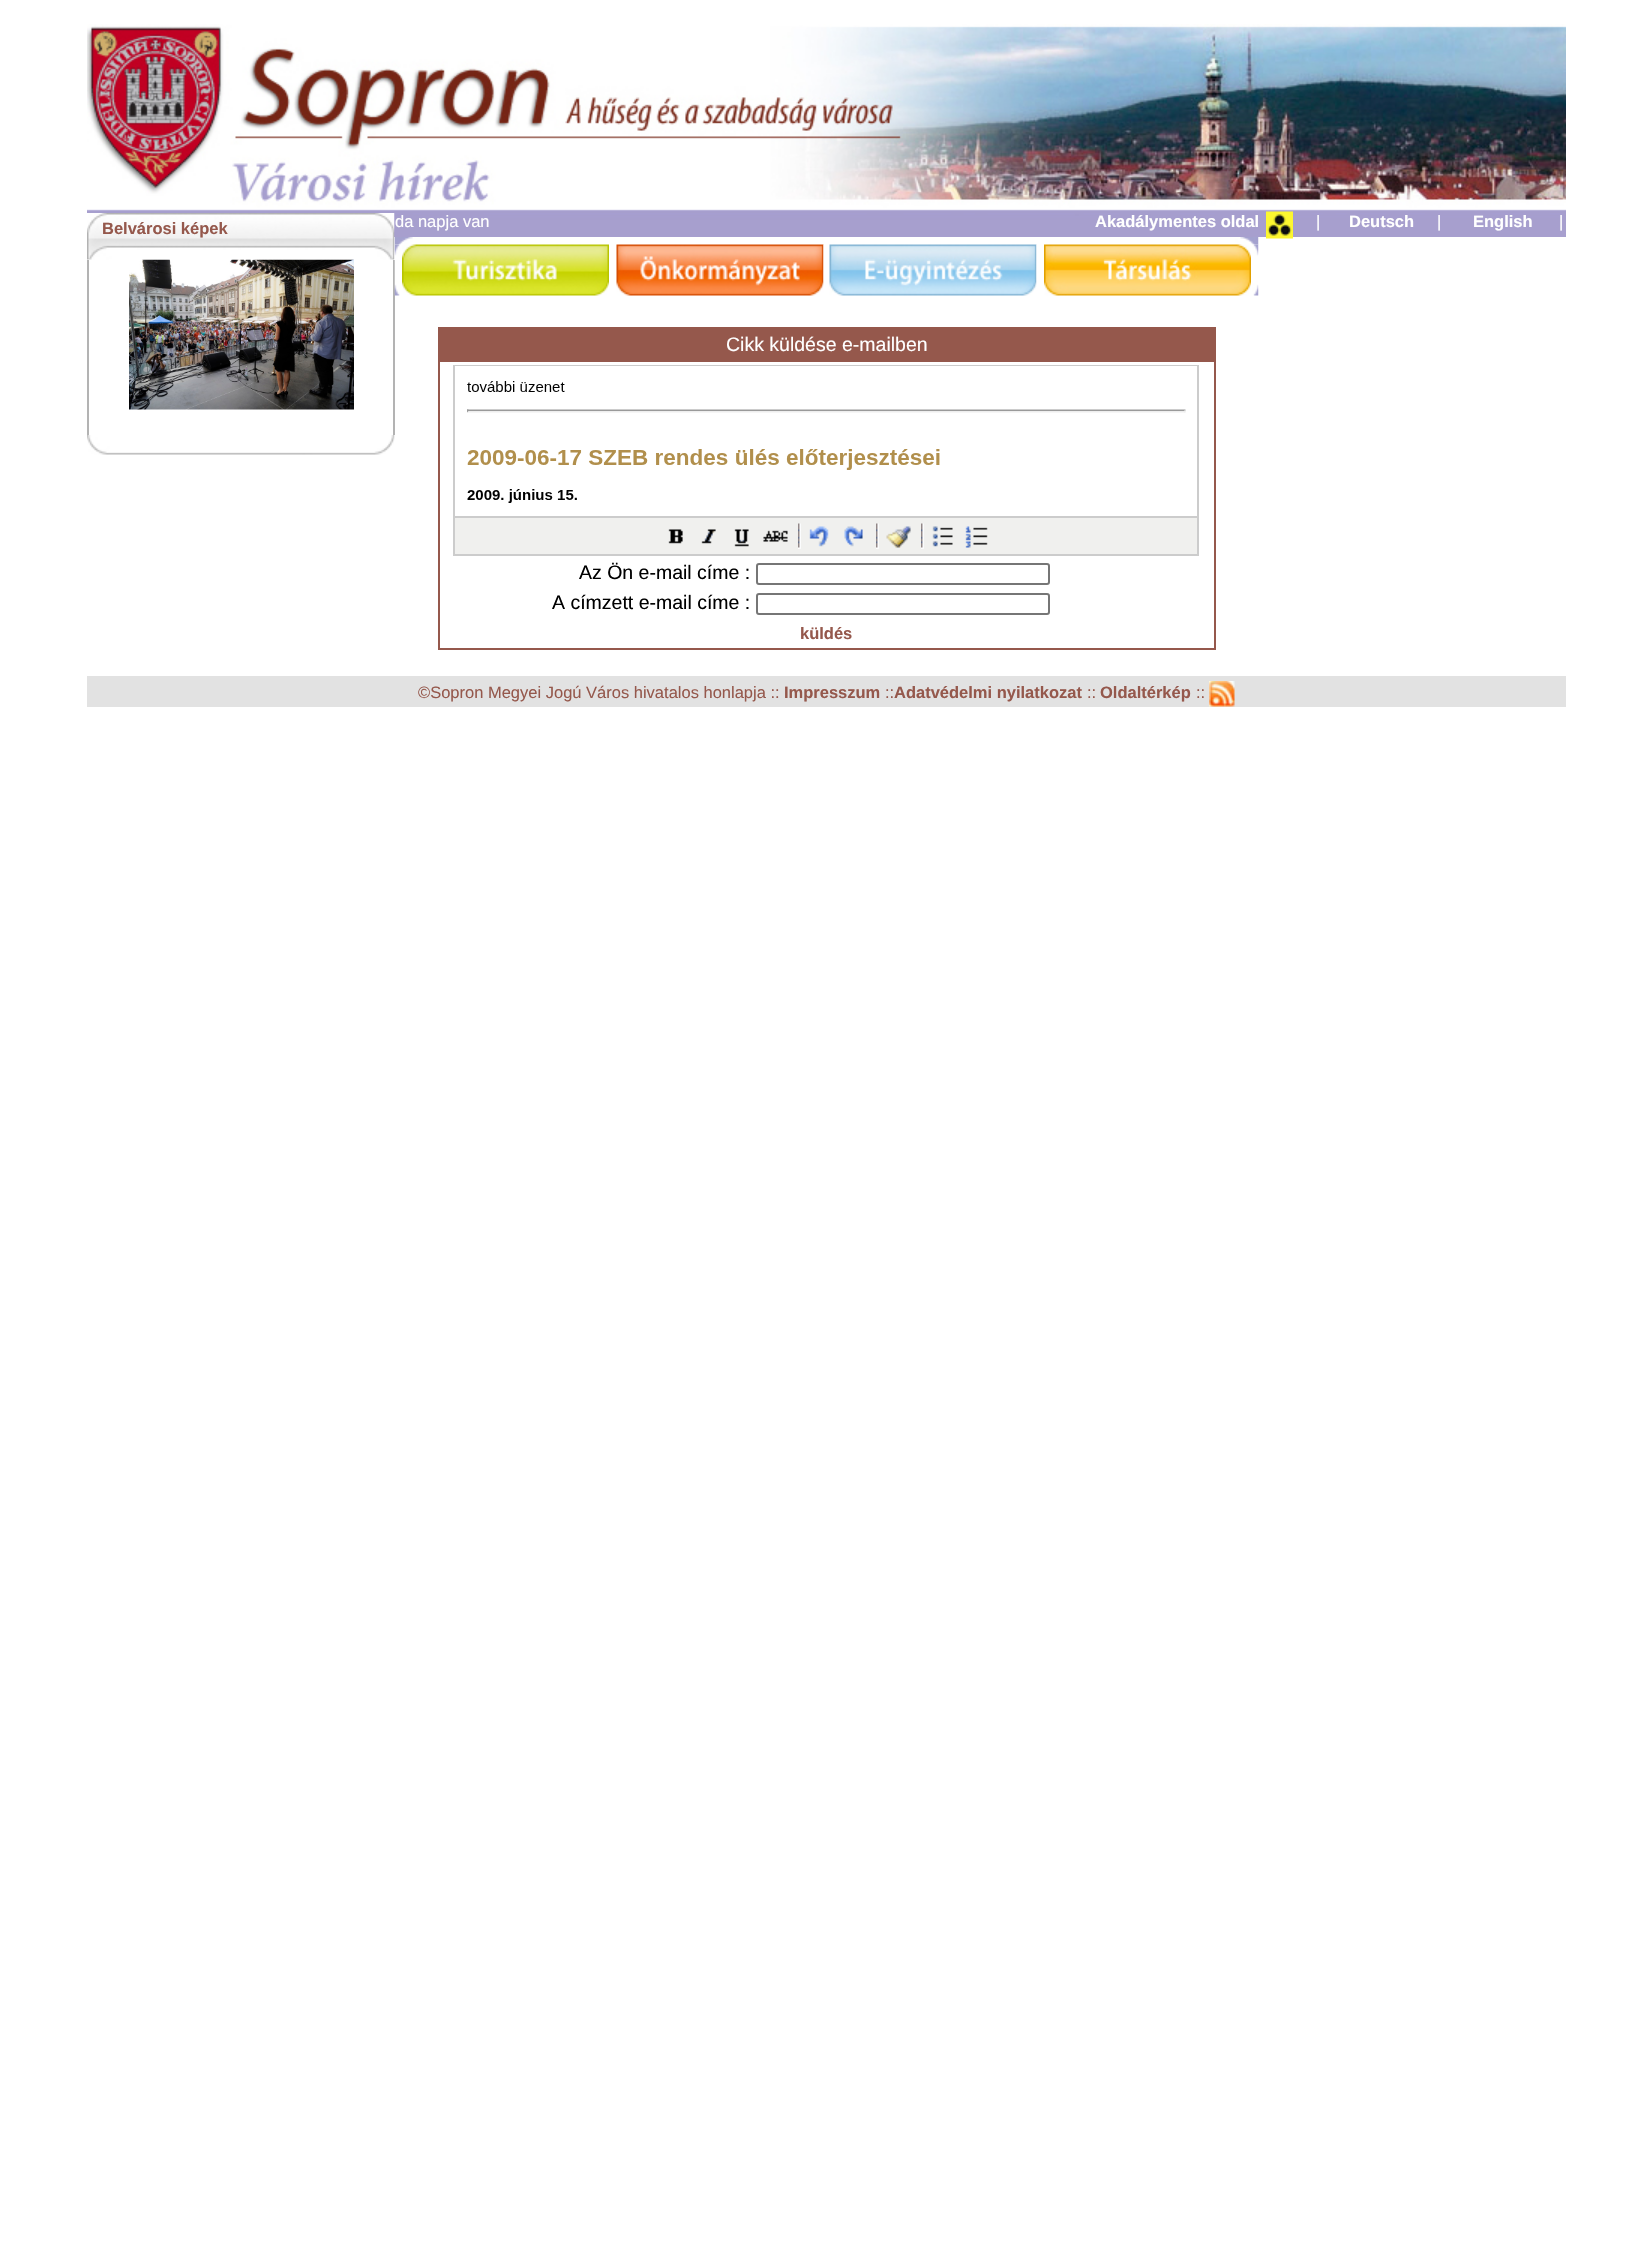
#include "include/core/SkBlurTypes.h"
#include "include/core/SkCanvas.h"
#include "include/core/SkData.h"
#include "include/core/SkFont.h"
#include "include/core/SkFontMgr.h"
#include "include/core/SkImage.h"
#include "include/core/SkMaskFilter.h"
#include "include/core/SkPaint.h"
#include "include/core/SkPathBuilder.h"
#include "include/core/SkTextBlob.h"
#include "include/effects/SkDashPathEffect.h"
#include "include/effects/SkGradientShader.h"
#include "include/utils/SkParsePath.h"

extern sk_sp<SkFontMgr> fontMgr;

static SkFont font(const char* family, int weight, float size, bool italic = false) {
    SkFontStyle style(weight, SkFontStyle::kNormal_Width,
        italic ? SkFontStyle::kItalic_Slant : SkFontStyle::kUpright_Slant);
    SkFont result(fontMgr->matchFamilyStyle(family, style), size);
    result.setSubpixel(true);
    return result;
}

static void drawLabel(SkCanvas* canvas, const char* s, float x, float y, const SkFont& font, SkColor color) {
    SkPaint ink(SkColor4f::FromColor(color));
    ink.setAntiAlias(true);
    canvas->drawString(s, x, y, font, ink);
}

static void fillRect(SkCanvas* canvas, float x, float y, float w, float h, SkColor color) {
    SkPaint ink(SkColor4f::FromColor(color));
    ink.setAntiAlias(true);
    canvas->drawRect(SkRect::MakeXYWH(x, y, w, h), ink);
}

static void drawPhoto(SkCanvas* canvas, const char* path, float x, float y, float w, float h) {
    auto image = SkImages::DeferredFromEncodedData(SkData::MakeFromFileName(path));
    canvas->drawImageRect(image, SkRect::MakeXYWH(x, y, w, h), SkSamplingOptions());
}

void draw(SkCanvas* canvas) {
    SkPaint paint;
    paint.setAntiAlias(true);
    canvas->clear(0xFFFFFFFF);
    drawPhoto(canvas, "assets/img1.png", 87, 24, 1479, 213);
    SkFont font1 = font("Liberation Sans", 400, 16.5f);
    drawLabel(canvas, "da napja van", 395, 227, font1, 0xFFFFFFFF);
    SkFont font2 = font("Liberation Sans", 700, 16.5f);
    drawLabel(canvas, "Akadálymentes oldal", 1095, 227, font2, 0xFFFFFFFF);
    drawPhoto(canvas, "assets/img2.png", 1266, 211, 27, 28);
    drawLabel(canvas, "|", 1316, 227, font1, 0xFFFFFFFF);
    drawLabel(canvas, "Deutsch", 1349, 227, font2, 0xFFFFFFFF);
    drawLabel(canvas, "|", 1437, 227, font1, 0xFFFFFFFF);
    drawLabel(canvas, "English", 1473, 227, font2, 0xFFFFFFFF);
    drawLabel(canvas, "|", 1559, 227, font1, 0xFFFFFFFF);
    drawPhoto(canvas, "assets/img3.png", 87, 213, 308, 47);
    drawLabel(canvas, "Belvárosi képek", 102, 234, font2, 0xFF95584C);
    fillRect(canvas, 393, 260, 2, 175, 0xFFB3B3B3);
    fillRect(canvas, 87, 260, 2, 175, 0xFFB3B3B3);
    drawPhoto(canvas, "assets/img4.png", 129, 259, 225, 151);
    drawPhoto(canvas, "assets/img5.png", 87, 435, 308, 20);
    drawPhoto(canvas, "assets/img6.png", 394, 237, 865, 8);
    drawPhoto(canvas, "assets/img7.png", 394, 244, 7, 52);
    drawPhoto(canvas, "assets/img8.png", 402, 244, 207, 52);
    drawPhoto(canvas, "assets/img9.png", 616, 244, 208, 52);
    drawPhoto(canvas, "assets/img10.png", 823, 244, 1, 43);
    drawPhoto(canvas, "assets/img11.png", 829, 244, 208, 52);
    drawPhoto(canvas, "assets/img12.png", 1036, 244, 1, 42);
    drawPhoto(canvas, "assets/img13.png", 1044, 244, 207, 52);
    drawPhoto(canvas, "assets/img14.png", 1252, 244, 7, 52);
    fillRect(canvas, 438, 327, 777, 2, 0xFF95584C);
    fillRect(canvas, 1214, 327, 2, 323, 0xFF95584C);
    fillRect(canvas, 438, 648, 777, 2, 0xFF95584C);
    fillRect(canvas, 438, 327, 2, 323, 0xFF95584C);
    fillRect(canvas, 440, 329, 774, 33, 0xFF95584C);
    SkFont font3 = font("Liberation Sans", 400, 19.5f);
    drawLabel(canvas, "Cikk küldése e-mailben", 726, 351, font3, 0xFFFFFFFF);
    fillRect(canvas, 455, 518, 742, 36, 0xFFF0F0EE);
    fillRect(canvas, 453, 365, 746, 1, 0xFFCCCCCC);
    fillRect(canvas, 1197, 365, 2, 190, 0xFFCCCCCC);
    fillRect(canvas, 453, 554, 746, 2, 0xFFCCCCCC);
    fillRect(canvas, 453, 365, 2, 190, 0xFFCCCCCC);
    fillRect(canvas, 455, 516, 742, 2, 0xFFCCCCCC);
    drawPhoto(canvas, "assets/img15.png", 467, 381, 719, 122);
    drawPhoto(canvas, "assets/img16.png", 668, 529, 15, 15);
    drawPhoto(canvas, "assets/img17.png", 701, 529, 15, 15);
    drawPhoto(canvas, "assets/img18.png", 734, 529, 15, 18);
    drawPhoto(canvas, "assets/img19.png", 763, 530, 25, 12);
    drawPhoto(canvas, "assets/img20.png", 798, 523, 3, 26);
    drawPhoto(canvas, "assets/img21.png", 809, 526, 20, 21);
    drawPhoto(canvas, "assets/img22.png", 844, 526, 19, 21);
    drawPhoto(canvas, "assets/img20.png", 876, 523, 3, 26);
    drawPhoto(canvas, "assets/img23.png", 886, 526, 25, 22);
    drawPhoto(canvas, "assets/img20.png", 921, 523, 3, 26);
    drawPhoto(canvas, "assets/img24.png", 932, 526, 21, 21);
    drawPhoto(canvas, "assets/img25.png", 965, 526, 23, 22);
    drawLabel(canvas, "Az Ön e-mail címe :", 579, 579, font3, 0xFF000000);
    paint.setStroke(true);
    paint.setStrokeWidth(2);
    paint.setColor(0xFF767676);
    canvas->drawRoundRect(SkRect::MakeXYWH(757, 564, 292, 20), 2, 2, paint);
    drawLabel(canvas, "A címzett e-mail címe :", 552, 609, font3, 0xFF000000);
    canvas->drawRoundRect(SkRect::MakeXYWH(757, 594, 292, 20), 2, 2, paint);
    drawLabel(canvas, "küldés", 800, 639, font2, 0xFF95584C);
    fillRect(canvas, 87, 676, 1479, 31, 0xFFE2E2E2);
    drawLabel(canvas, "©Sopron Megyei Jogú Város hivatalos honlapja ::", 418, 698, font1, 0xFF95584C);
    drawLabel(canvas, "Impresszum", 784, 698, font2, 0xFF95584C);
    drawLabel(canvas, "::", 885, 698, font1, 0xFF95584C);
    drawLabel(canvas, "Adatvédelmi nyilatkozat", 894, 698, font2, 0xFF95584C);
    drawLabel(canvas, "::", 1087, 698, font1, 0xFF95584C);
    drawLabel(canvas, "Oldaltérkép", 1100, 698, font2, 0xFF95584C);
    drawLabel(canvas, "::", 1196, 698, font1, 0xFF95584C);
    drawPhoto(canvas, "assets/img26.png", 1209, 681, 26, 26);
}
